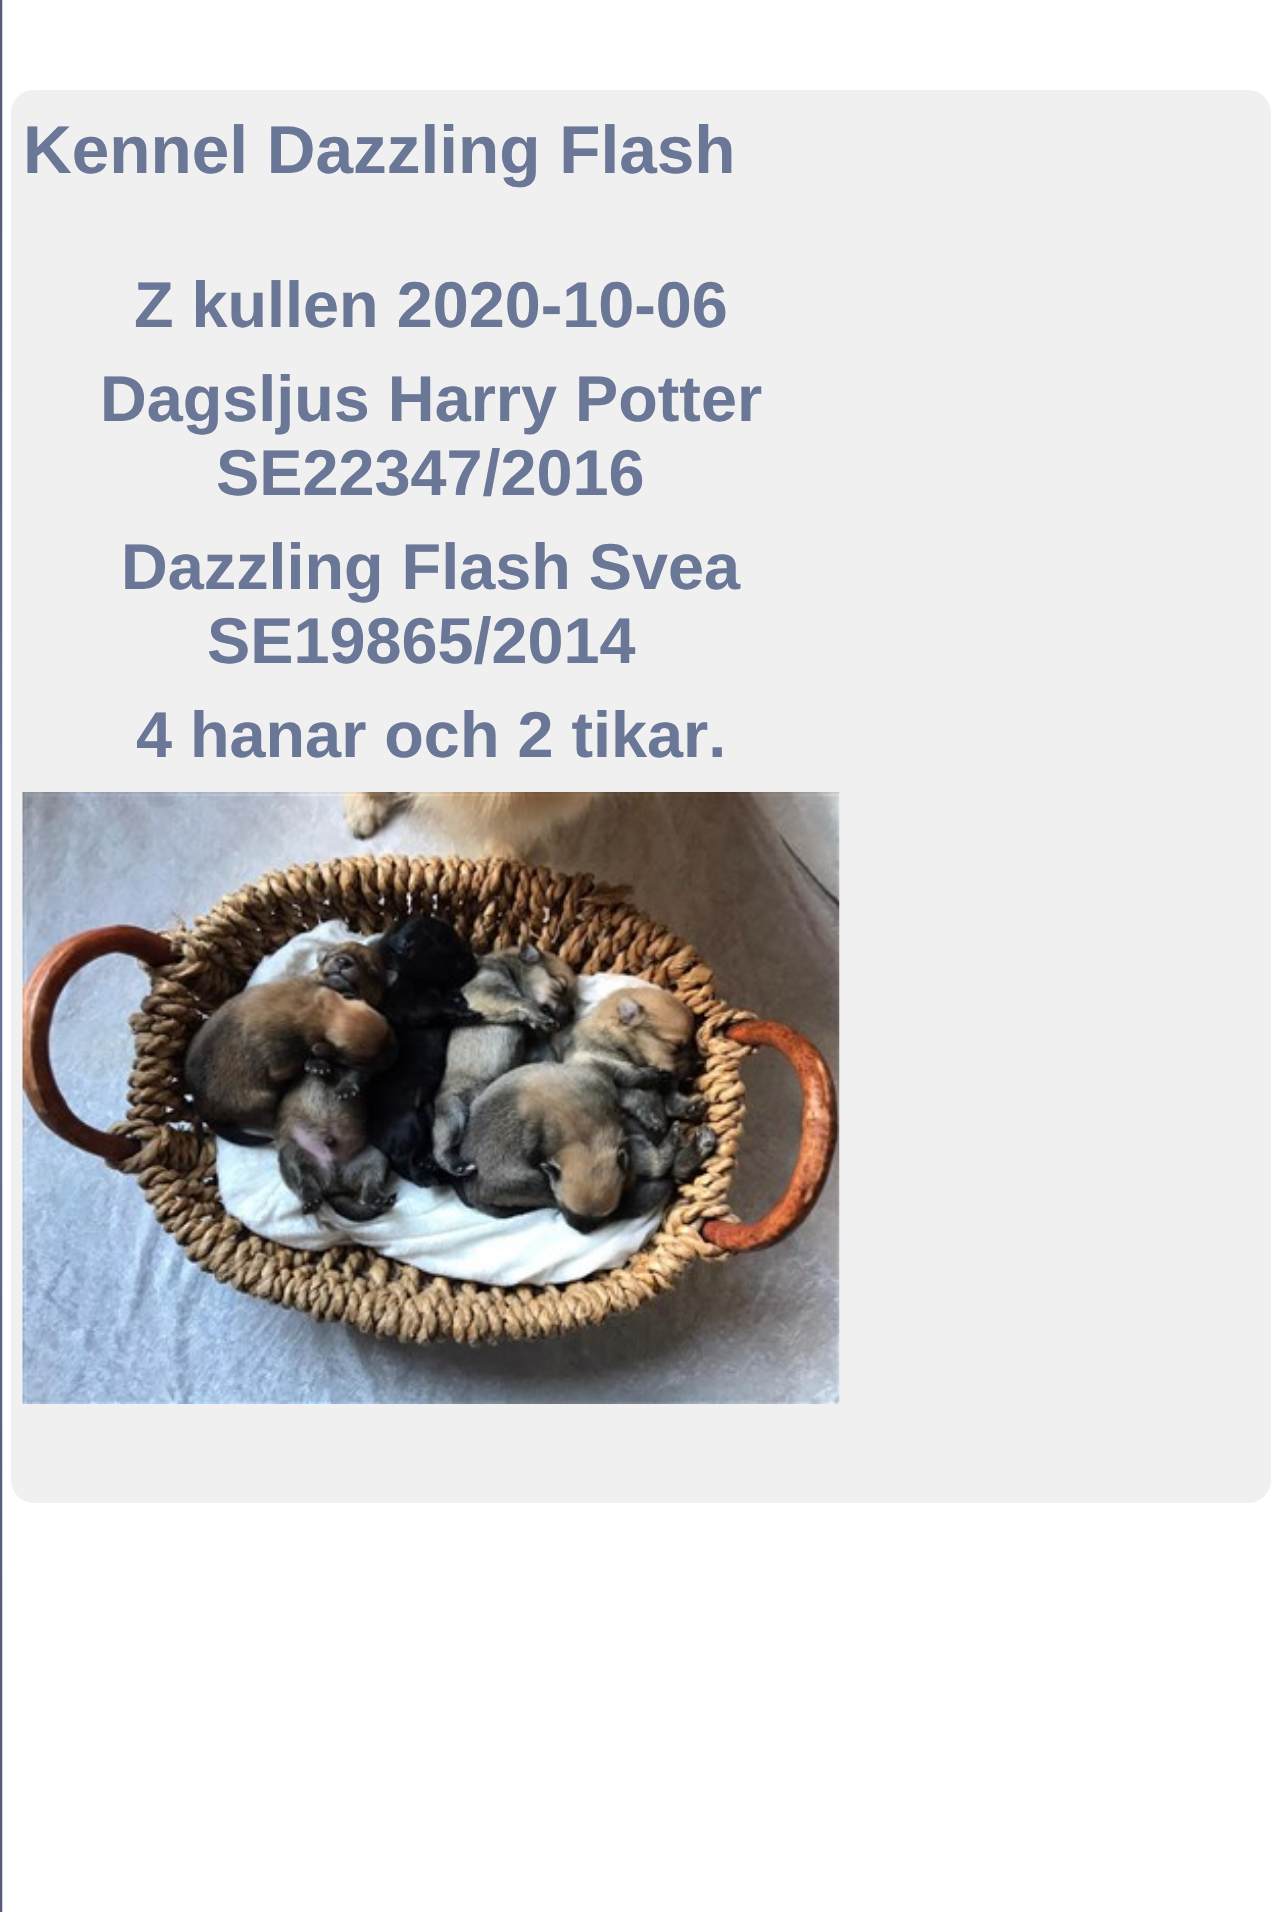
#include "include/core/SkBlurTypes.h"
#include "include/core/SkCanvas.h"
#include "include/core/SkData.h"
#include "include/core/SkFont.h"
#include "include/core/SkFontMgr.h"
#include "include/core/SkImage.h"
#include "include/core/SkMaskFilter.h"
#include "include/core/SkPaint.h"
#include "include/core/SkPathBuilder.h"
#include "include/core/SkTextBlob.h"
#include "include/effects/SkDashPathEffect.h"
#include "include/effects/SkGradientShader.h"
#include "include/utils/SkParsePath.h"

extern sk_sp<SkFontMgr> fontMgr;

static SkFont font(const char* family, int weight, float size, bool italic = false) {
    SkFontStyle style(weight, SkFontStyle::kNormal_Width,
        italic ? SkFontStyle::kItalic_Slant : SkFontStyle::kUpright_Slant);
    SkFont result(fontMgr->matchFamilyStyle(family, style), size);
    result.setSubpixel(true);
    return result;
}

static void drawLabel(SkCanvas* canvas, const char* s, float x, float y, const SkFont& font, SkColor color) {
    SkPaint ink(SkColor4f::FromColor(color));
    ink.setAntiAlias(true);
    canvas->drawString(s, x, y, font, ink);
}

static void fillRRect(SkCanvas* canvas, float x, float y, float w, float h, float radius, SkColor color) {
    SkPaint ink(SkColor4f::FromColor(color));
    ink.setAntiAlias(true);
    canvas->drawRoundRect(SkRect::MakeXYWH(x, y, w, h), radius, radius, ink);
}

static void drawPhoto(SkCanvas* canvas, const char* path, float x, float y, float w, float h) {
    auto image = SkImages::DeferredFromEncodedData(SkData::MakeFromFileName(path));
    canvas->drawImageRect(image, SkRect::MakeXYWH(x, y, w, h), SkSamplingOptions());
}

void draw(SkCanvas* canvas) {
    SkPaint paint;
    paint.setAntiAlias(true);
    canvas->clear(0xFFFFFFFF);
    drawPhoto(canvas, "assets/img1.png", 0, 0, 3, 1912);
    fillRRect(canvas, 11, 90, 1260, 1413, 23, 0xFFF0F0F0);
    SkFont font1 = font("Liberation Sans", 700, 67.5f);
    drawLabel(canvas, "Kennel Dazzling Flash", 23, 173, font1, 0xFF6A7797);
    SkFont font2 = font("Liberation Sans", 700, 64.75f);
    drawLabel(canvas, "Z kullen 2020-10-06", 134, 327, font2, 0xFF6A7797);
    drawLabel(canvas, "Dagsljus Harry Potter", 100, 421, font2, 0xFF6A7797);
    drawLabel(canvas, "SE22347/2016", 216, 495, font2, 0xFF6A7797);
    drawLabel(canvas, "Dazzling Flash Svea", 121, 589, font2, 0xFF6A7797);
    drawLabel(canvas, "SE19865/2014", 207, 663, font2, 0xFF6A7797);
    drawLabel(canvas, "4 hanar och 2 tikar.", 136, 757, font2, 0xFF6A7797);
    drawPhoto(canvas, "assets/img2.png", 22, 792, 818, 612);
}
